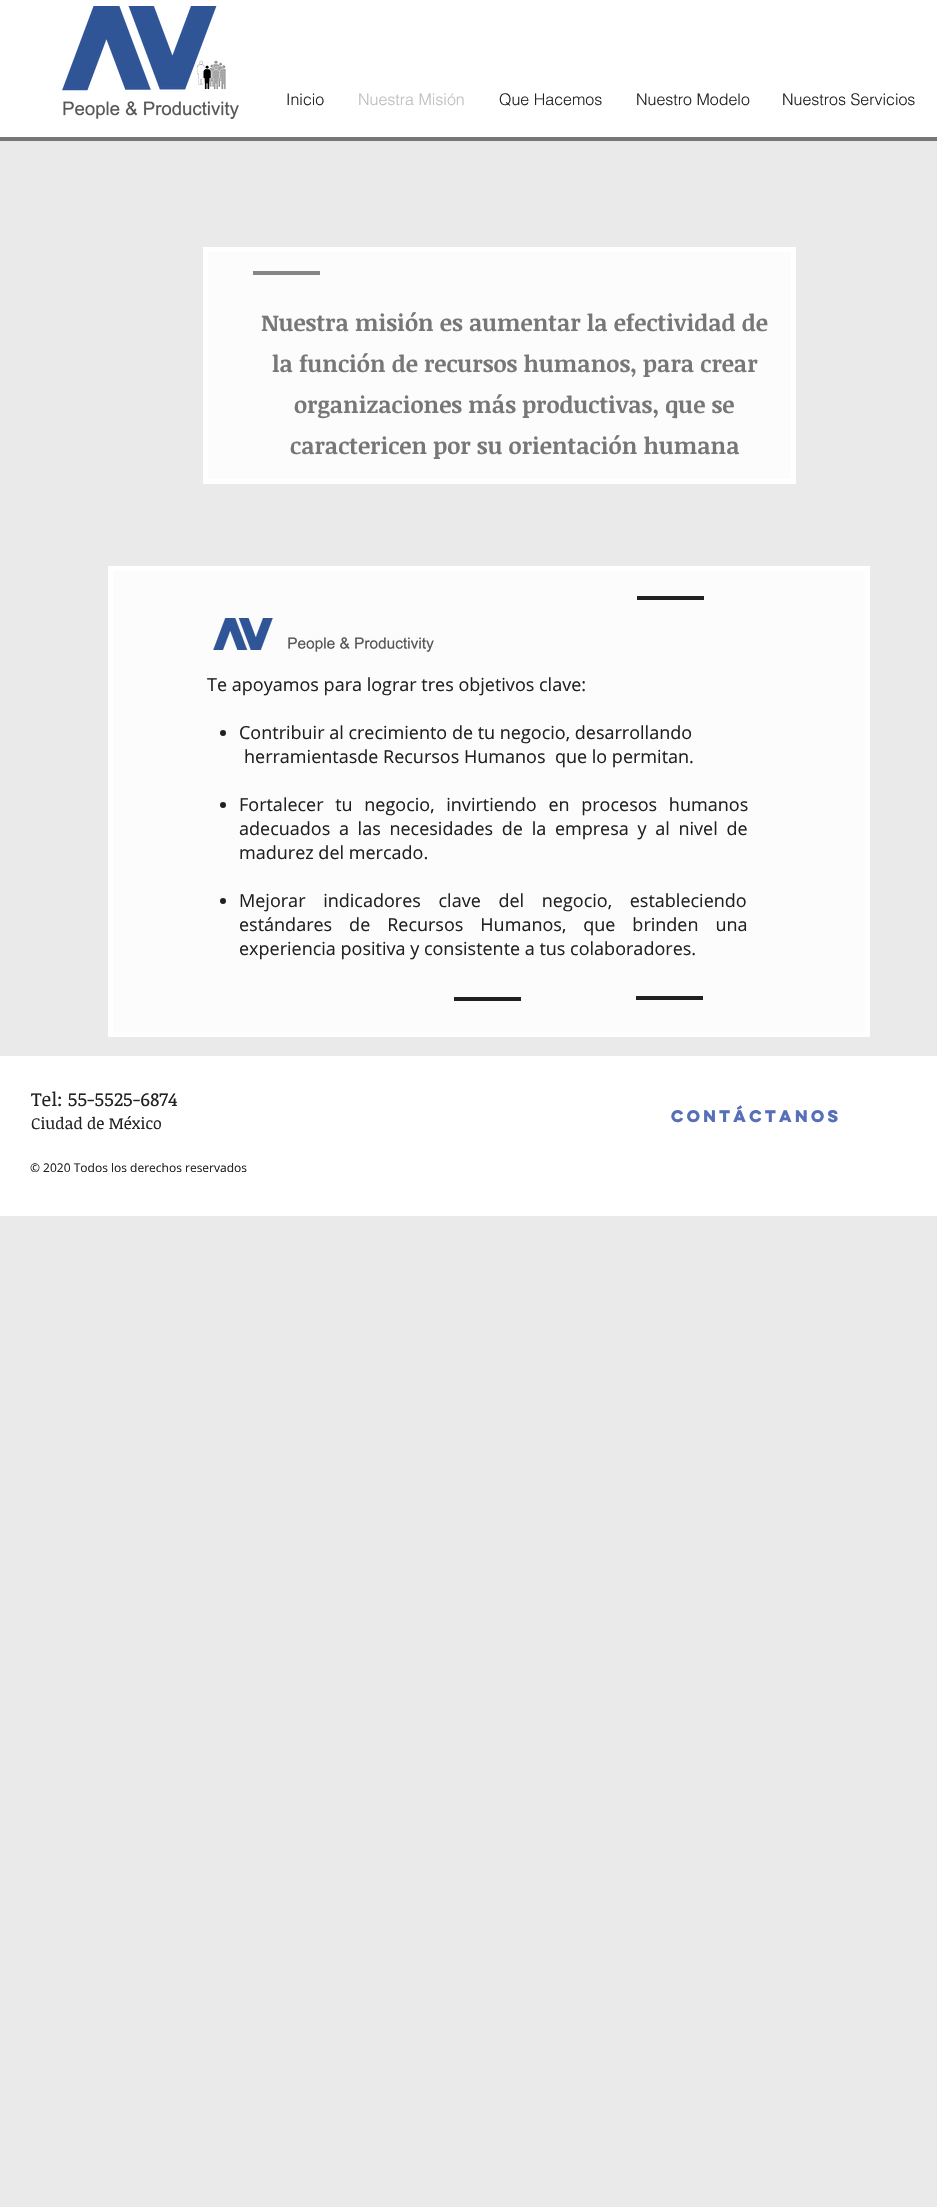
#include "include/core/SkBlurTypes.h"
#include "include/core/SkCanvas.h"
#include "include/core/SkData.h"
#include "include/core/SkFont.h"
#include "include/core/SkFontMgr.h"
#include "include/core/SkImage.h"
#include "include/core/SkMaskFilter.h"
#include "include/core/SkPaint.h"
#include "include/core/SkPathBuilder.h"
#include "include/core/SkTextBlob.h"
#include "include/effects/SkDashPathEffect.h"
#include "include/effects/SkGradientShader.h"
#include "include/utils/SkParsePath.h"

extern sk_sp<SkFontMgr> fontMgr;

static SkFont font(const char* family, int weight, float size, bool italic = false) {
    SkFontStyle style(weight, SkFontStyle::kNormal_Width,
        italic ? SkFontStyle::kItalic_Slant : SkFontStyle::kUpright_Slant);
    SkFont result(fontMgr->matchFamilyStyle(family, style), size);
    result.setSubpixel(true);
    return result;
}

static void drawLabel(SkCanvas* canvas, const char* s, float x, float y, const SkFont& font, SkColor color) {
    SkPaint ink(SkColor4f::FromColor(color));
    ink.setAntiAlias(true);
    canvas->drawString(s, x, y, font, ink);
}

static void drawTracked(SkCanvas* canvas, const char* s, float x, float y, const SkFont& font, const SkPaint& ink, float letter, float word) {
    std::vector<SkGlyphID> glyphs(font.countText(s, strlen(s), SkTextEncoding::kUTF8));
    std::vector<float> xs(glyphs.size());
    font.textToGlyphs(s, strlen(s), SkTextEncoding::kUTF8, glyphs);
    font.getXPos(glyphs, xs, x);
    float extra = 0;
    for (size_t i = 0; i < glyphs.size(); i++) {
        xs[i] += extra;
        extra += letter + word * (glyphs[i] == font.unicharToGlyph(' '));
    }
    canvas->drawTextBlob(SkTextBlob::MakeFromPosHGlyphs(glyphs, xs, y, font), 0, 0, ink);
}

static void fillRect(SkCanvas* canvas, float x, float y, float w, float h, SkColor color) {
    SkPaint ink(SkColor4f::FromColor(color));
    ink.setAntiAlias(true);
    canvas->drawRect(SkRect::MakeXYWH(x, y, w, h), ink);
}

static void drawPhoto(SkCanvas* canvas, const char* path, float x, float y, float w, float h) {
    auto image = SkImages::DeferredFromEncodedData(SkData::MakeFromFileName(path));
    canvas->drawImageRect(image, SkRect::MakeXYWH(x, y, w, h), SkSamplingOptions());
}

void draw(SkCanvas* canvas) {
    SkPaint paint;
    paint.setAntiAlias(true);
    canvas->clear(0xFFEAEAEA);
    fillRect(canvas, 0, 0, 937, 137, 0xFFFFFFFF);
    fillRect(canvas, 0, 137, 937, 4, 0xFF777777);
    drawPhoto(canvas, "assets/img1.png", 62, 6, 177, 113);
    SkFont font1 = font("helvetica", 300, 16);
    drawLabel(canvas, "Inicio", 286, 105, font1, 0xFF212121);
    drawLabel(canvas, "Nuestra Misión", 358, 105, font1, 0xFFBFBEBE);
    drawLabel(canvas, "Que Hacemos", 499, 105, font1, 0xFF212121);
    drawLabel(canvas, "Nuestro Modelo", 636, 105, font1, 0xFF212121);
    drawLabel(canvas, "Nuestros Servicios", 782, 105, font1, 0xFF212121);
    paint.setColor(0xFFFCFCFC);
    canvas->drawRect(SkRect::MakeXYWH(205.5f, 249.5f, 588, 232), paint);
    paint.setStroke(true);
    paint.setStrokeWidth(5);
    paint.setColor(0xFFFFFFFF);
    canvas->drawRect(SkRect::MakeXYWH(205.5f, 249.5f, 588, 232), paint);
    fillRect(canvas, 253, 271, 67, 4, 0xFF868686);
    SkFont font2 = font("Noticia Text", 700, 23);
    drawLabel(canvas, "Nuestra misión es aumentar la efectividad de", 261, 331, font2, 0xFF777777);
    drawLabel(canvas, "la función de recursos humanos, para crear", 272, 372, font2, 0xFF777777);
    drawLabel(canvas, "organizaciones más productivas, que se", 294, 413, font2, 0xFF777777);
    drawLabel(canvas, "caractericen por su orientación humana", 290, 454, font2, 0xFF777777);
    paint.setStroke(false);
    paint.setColor(0xFFFCFCFC);
    canvas->drawRect(SkRect::MakeXYWH(110.5f, 568.5f, 757, 466), paint);
    paint.setStroke(true);
    paint.setColor(0xFFFFFFFF);
    canvas->drawRect(SkRect::MakeXYWH(110.5f, 568.5f, 757, 466), paint);
    fillRect(canvas, 637, 596, 67, 4, 0xFF212121);
    drawPhoto(canvas, "assets/img2.png", 213, 618, 60, 32);
    drawPhoto(canvas, "assets/img3.png", 288, 637, 146, 15);
    SkFont font3 = font("Open Sans", 400, 18);
    drawLabel(canvas, "Te apoyamos para lograr tres objetivos clave:", 207, 691, font3, 0xFF212121);
    paint.setStroke(false);
    paint.setColor(0xFF212121);
    canvas->drawCircle(223, 733, 3, paint);
    drawLabel(canvas, "Contribuir al crecimiento de tu negocio, desarrollando", 239, 739, font3, 0xFF212121);
    drawLabel(canvas, "herramientasde Recursos Humanos  que lo permitan.", 244, 763, font3, 0xFF212121);
    canvas->drawCircle(223, 805, 3, paint);
    drawTracked(canvas, "Fortalecer tu negocio, invirtiendo en procesos humanos", 239, 811, font3, paint, 0, 7);
    drawTracked(canvas, "adecuados a las necesidades de la empresa y al nivel de", 239, 835, font3, paint, 0, 4);
    drawLabel(canvas, "madurez del mercado.", 239, 859, font3, 0xFF212121);
    canvas->drawCircle(223, 901, 3, paint);
    drawTracked(canvas, "Mejorar indicadores clave del negocio, estableciendo", 239, 907, font3, paint, 0, 13);
    drawTracked(canvas, "estándares de Recursos Humanos, que brinden una", 239, 931, font3, paint, 0, 12.25f);
    drawLabel(canvas, "experiencia positiva y consistente a tus colaboradores.", 239, 955, font3, 0xFF212121);
    fillRect(canvas, 454, 997, 67, 4, 0xFF212121);
    fillRect(canvas, 636, 996, 67, 4, 0xFF212121);
    fillRect(canvas, 0, 1056, 937, 160, 0xFFFFFFFF);
    SkFont font4 = font("Noticia Text", 400, 19);
    drawLabel(canvas, "Tel: 55-5525-6874", 31, 1106, font4, 0xFF212121);
    SkFont font5 = font("Noticia Text", 400, 16);
    drawLabel(canvas, "Ciudad de México", 31, 1129, font5, 0xFF212121);
    SkFont font6 = font("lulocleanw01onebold", 700, 15);
    drawLabel(canvas, "Contáctanos", 671, 1122, font6, 0xFF566FB8);
    SkFont font7 = font("Open Sans", 400, 12);
    drawLabel(canvas, "© 2020 Todos los derechos reservados", 30, 1172, font7, 0xFF212121);
}
